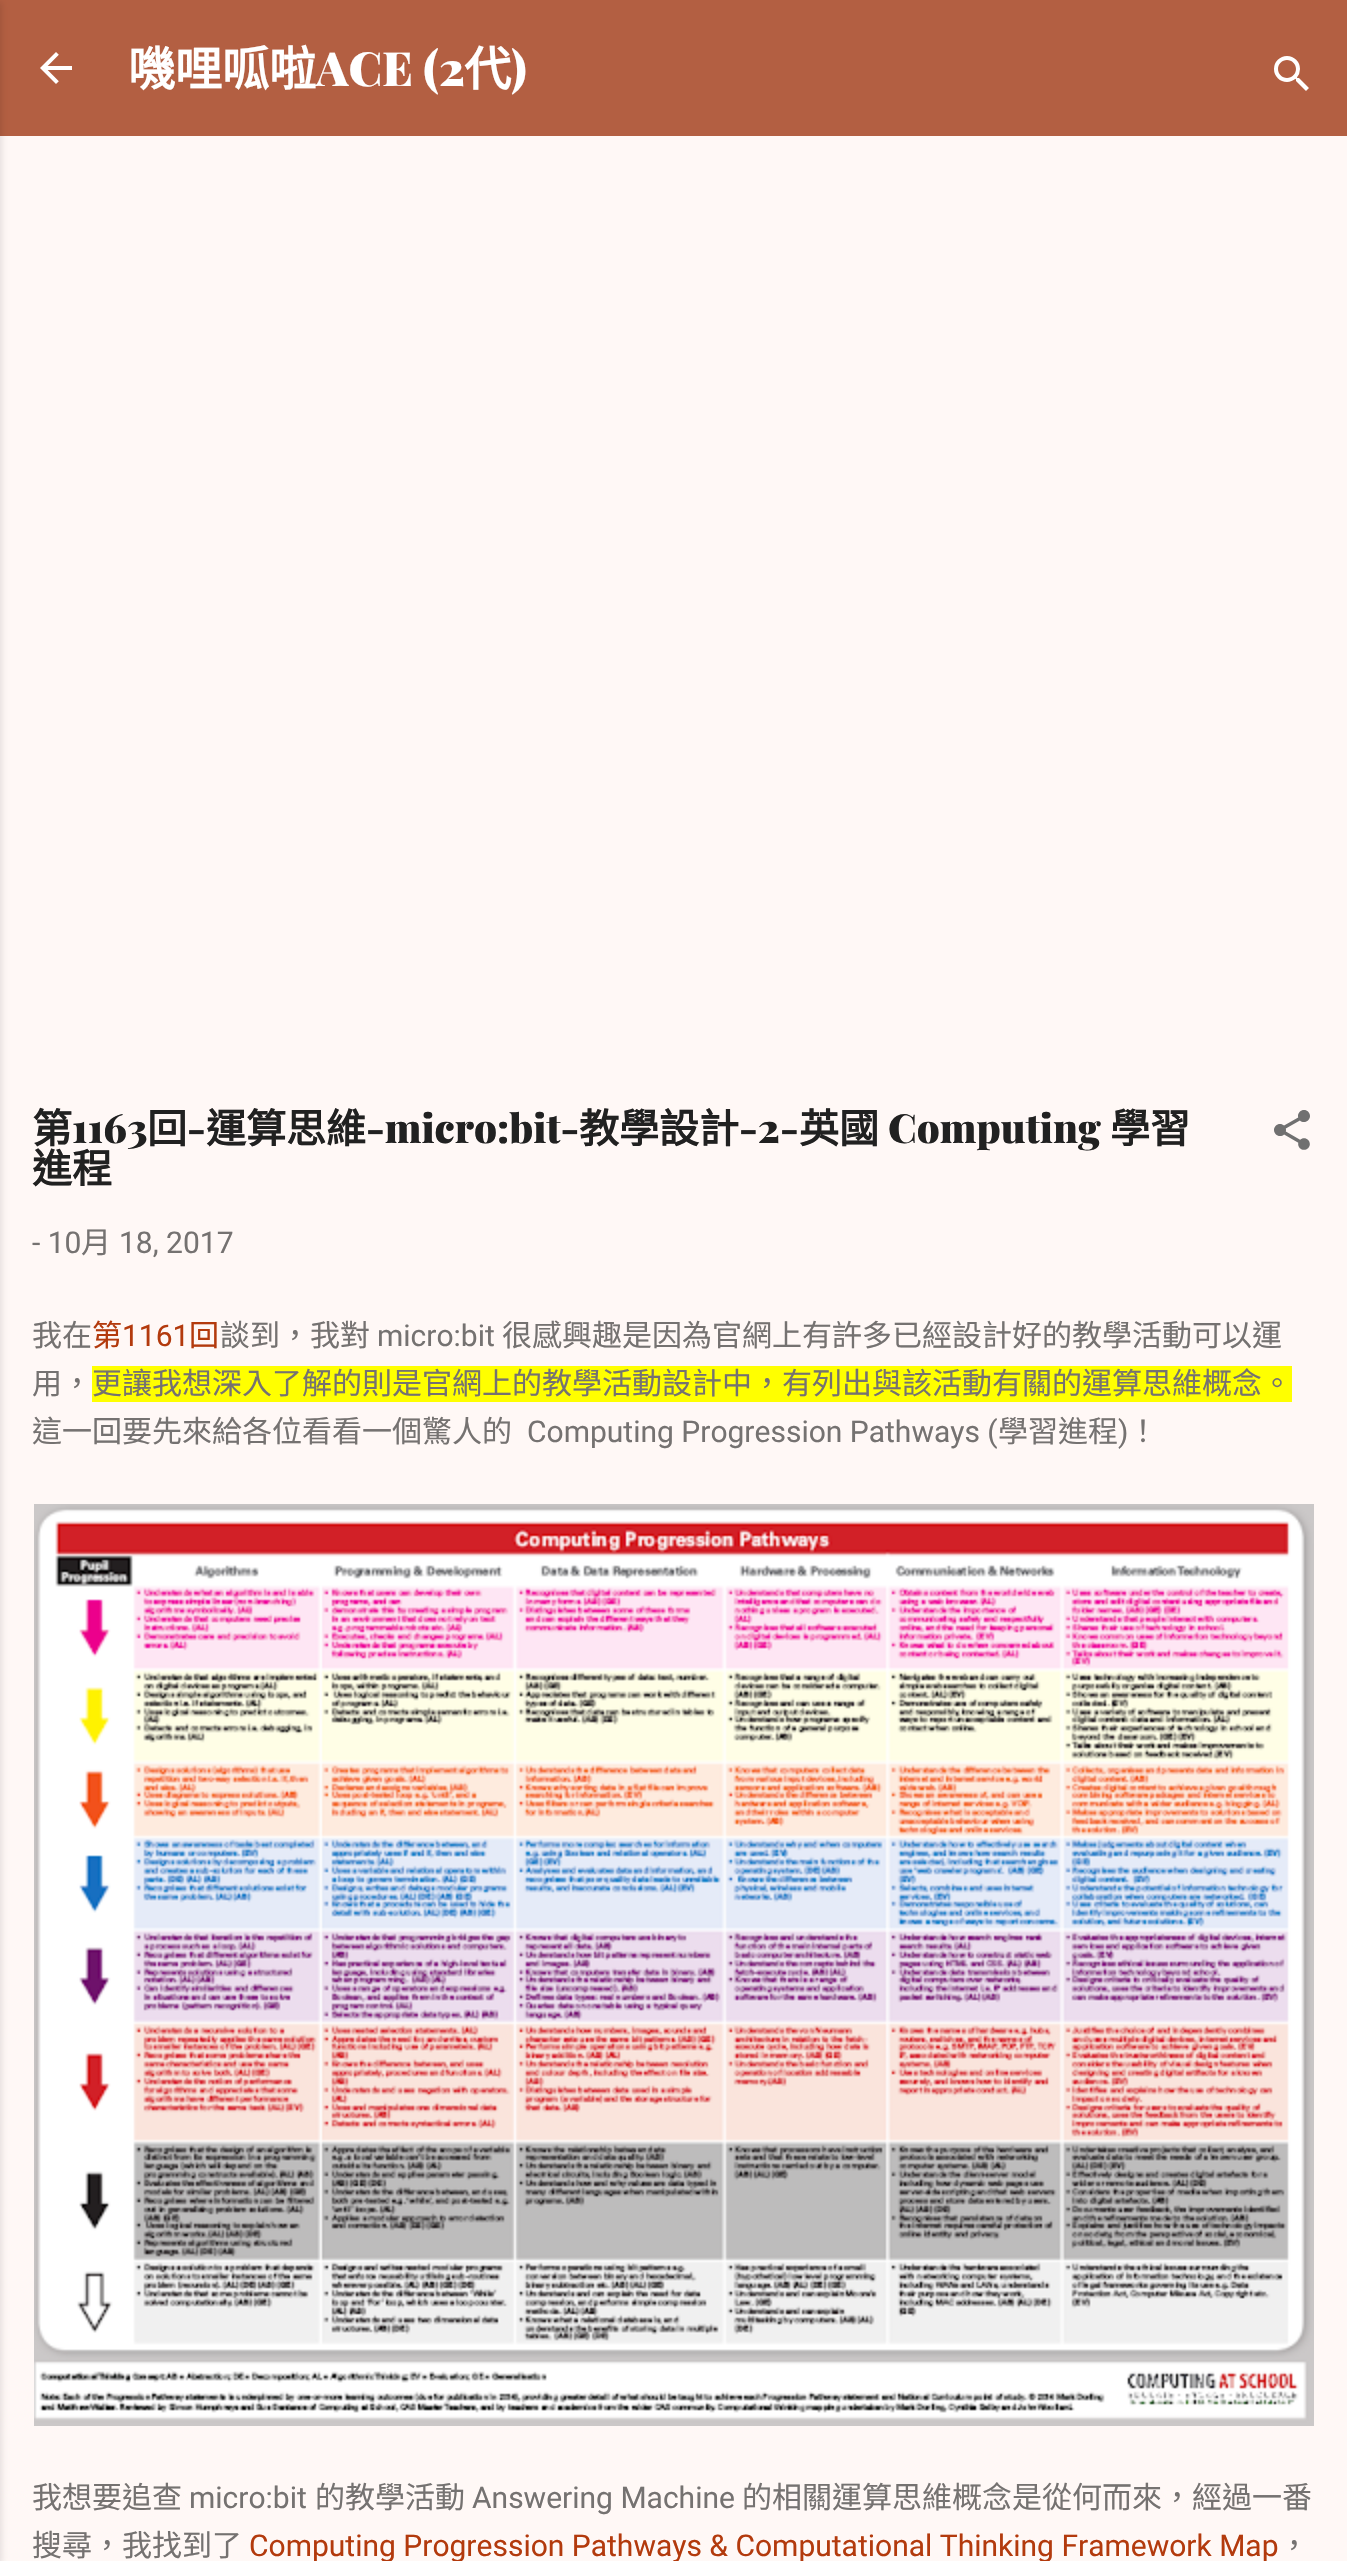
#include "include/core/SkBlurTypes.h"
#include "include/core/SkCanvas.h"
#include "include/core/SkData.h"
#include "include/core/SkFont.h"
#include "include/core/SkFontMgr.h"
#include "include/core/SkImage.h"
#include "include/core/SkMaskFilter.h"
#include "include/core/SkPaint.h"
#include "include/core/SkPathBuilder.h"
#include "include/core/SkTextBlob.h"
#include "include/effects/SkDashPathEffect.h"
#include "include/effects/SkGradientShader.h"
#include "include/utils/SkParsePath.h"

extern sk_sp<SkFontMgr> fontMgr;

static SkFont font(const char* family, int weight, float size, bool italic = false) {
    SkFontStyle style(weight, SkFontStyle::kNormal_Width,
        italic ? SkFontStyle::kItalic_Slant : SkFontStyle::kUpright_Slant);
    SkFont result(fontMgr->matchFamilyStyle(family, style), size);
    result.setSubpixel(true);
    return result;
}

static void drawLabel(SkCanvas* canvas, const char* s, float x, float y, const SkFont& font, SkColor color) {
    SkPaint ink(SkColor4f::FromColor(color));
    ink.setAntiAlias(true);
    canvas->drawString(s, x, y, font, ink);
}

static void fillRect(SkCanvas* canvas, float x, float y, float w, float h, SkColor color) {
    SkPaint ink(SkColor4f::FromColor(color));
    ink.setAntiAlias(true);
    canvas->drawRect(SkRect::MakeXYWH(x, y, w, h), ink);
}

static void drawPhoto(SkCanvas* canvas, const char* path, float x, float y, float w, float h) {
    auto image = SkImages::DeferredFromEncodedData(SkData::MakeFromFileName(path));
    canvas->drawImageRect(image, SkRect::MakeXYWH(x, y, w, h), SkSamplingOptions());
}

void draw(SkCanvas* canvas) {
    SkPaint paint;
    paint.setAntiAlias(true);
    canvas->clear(0xFFB35F42);
    fillRect(canvas, 0, 136, 1347, 2425, 0xFFFFF8F6);
    paint.setColor(0x1A000000);
    paint.setMaskFilter(SkMaskFilter::MakeBlur(kNormal_SkBlurStyle, 3));
    canvas->drawRect(SkRect::MakeXYWH(-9, 2, 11, 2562), paint);
    paint.setMaskFilter(nullptr);
    drawPhoto(canvas, "assets/img1.png", 40, 52, 32, 32);
    SkFont font1 = font("Noto Sans CJK TC", 700, 47);
    drawLabel(canvas, "嘰哩呱啦", 128, 86, font1, 0xFFFFFFFF);
    SkFont font2 = font("Playfair Display", 900, 47);
    drawLabel(canvas, "ACE (2", 316, 86, font2, 0xFFFFFFFF);
    drawLabel(canvas, "代", 464, 86, font1, 0xFFFFFFFF);
    drawLabel(canvas, ")", 511, 86, font2, 0xFFFFFFFF);
    drawPhoto(canvas, "assets/img2.png", 1274, 56, 35, 35);
    SkFont font3 = font("Noto Sans CJK TC", 700, 40);
    drawLabel(canvas, "第", 32, 1143, font3, 0xFF212121);
    SkFont font4 = font("Playfair Display", 900, 40);
    drawLabel(canvas, "1163", 72, 1143, font4, 0xFF212121);
    drawLabel(canvas, "回", 147, 1143, font3, 0xFF212121);
    drawLabel(canvas, "-", 187, 1143, font4, 0xFF212121);
    drawLabel(canvas, "運算思維", 206, 1143, font3, 0xFF212121);
    drawLabel(canvas, "-micro:bit-", 366, 1143, font4, 0xFF212121);
    drawLabel(canvas, "教學設計", 579, 1143, font3, 0xFF212121);
    drawLabel(canvas, "-2-", 739, 1143, font4, 0xFF212121);
    drawLabel(canvas, "英國", 799, 1143, font3, 0xFF212121);
    drawLabel(canvas, "Computing", 888, 1143, font4, 0xFF212121);
    drawLabel(canvas, "學習", 1110, 1143, font3, 0xFF212121);
    drawLabel(canvas, "進程", 32, 1183, font3, 0xFF212121);
    drawPhoto(canvas, "assets/img3.png", 1274, 1110, 36, 40);
    SkFont font5 = font("Roboto", 400, 30);
    drawLabel(canvas, "- 10", 32, 1253, font5, 0xFF757271);
    SkFont font6 = font("Noto Sans CJK TC", 400, 30);
    drawLabel(canvas, "月", 81, 1253, font6, 0xFF757271);
    drawLabel(canvas, "18, 2017", 119, 1253, font5, 0xFF757271);
    drawLabel(canvas, "我在", 32, 1346, font6, 0xFF757271);
    drawLabel(canvas, "第", 92, 1346, font6, 0xFFB33A0D);
    drawLabel(canvas, "1161", 122, 1346, font5, 0xFFB33A0D);
    drawLabel(canvas, "回", 189, 1346, font6, 0xFFB33A0D);
    drawLabel(canvas, "談到，我對", 220, 1346, font6, 0xFF757271);
    drawLabel(canvas, "micro:bit", 377, 1346, font5, 0xFF757271);
    drawLabel(canvas, "很感興趣是因為官網上有許多已經設計好的教學活動可以運", 502, 1346, font6, 0xFF757271);
    drawLabel(canvas, "用，", 32, 1394, font6, 0xFF757271);
    fillRect(canvas, 92, 1366, 1200, 36, 0xFFFFFF00);
    drawLabel(canvas, "更讓我想深入了解的則是官網上的教學活動設計中，有列出與該活動有關的運算思維概念。", 92, 1394, font6, 0xFF757271);
    drawLabel(canvas, "這一回要先來給各位看看一個驚人的", 32, 1442, font6, 0xFF757271);
    drawLabel(canvas, "Computing Progression Pathways (", 527, 1442, font5, 0xFF757271);
    drawLabel(canvas, "學習進程", 998, 1442, font6, 0xFF757271);
    drawLabel(canvas, ")", 1118, 1442, font5, 0xFF757271);
    drawLabel(canvas, "！", 1128, 1442, font6, 0xFF757271);
    drawPhoto(canvas, "assets/img4.png", 34, 1504, 1280, 922);
    drawLabel(canvas, "我想要追查", 32, 2508, font6, 0xFF757271);
    drawLabel(canvas, "micro:bit", 189, 2508, font5, 0xFF757271);
    drawLabel(canvas, "的教學活動", 315, 2508, font6, 0xFF757271);
    drawLabel(canvas, "Answering Machine", 472, 2508, font5, 0xFF757271);
    drawLabel(canvas, "的相關運算思維概念是從何而來，經過一番", 742, 2508, font6, 0xFF757271);
    drawLabel(canvas, "搜尋，我找到了", 32, 2556, font6, 0xFF757271);
    drawLabel(canvas, "Computing Progression Pathways & Computational Thinking Framework Map", 249, 2556, font5, 0xFFB33A0D);
    drawLabel(canvas, "，", 1279, 2556, font6, 0xFF757271);
}
